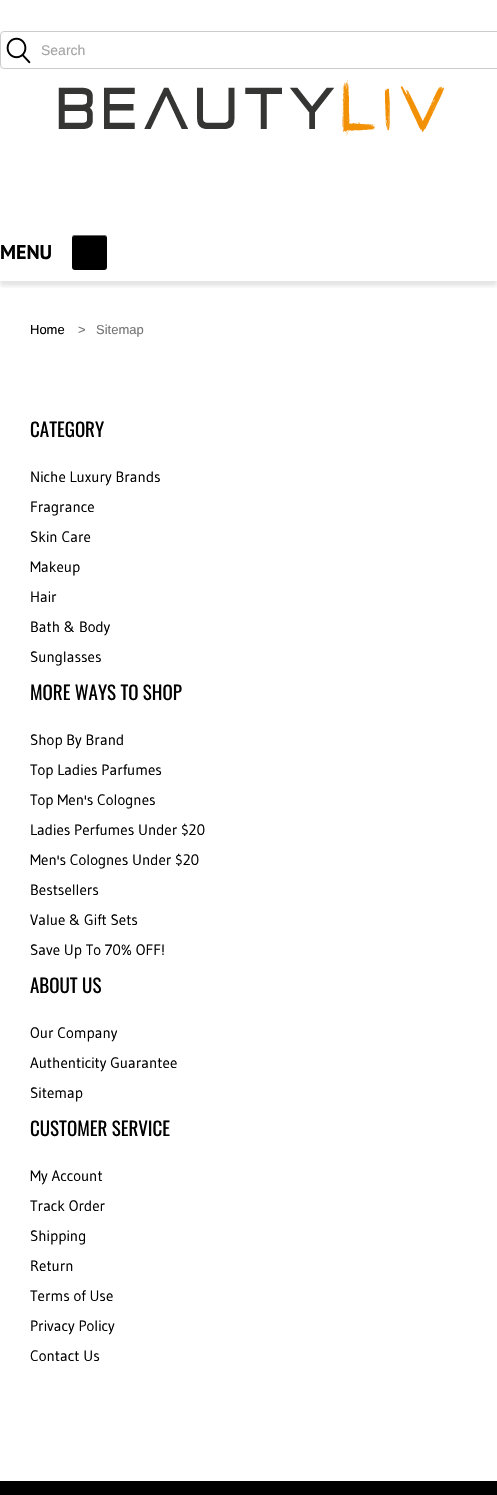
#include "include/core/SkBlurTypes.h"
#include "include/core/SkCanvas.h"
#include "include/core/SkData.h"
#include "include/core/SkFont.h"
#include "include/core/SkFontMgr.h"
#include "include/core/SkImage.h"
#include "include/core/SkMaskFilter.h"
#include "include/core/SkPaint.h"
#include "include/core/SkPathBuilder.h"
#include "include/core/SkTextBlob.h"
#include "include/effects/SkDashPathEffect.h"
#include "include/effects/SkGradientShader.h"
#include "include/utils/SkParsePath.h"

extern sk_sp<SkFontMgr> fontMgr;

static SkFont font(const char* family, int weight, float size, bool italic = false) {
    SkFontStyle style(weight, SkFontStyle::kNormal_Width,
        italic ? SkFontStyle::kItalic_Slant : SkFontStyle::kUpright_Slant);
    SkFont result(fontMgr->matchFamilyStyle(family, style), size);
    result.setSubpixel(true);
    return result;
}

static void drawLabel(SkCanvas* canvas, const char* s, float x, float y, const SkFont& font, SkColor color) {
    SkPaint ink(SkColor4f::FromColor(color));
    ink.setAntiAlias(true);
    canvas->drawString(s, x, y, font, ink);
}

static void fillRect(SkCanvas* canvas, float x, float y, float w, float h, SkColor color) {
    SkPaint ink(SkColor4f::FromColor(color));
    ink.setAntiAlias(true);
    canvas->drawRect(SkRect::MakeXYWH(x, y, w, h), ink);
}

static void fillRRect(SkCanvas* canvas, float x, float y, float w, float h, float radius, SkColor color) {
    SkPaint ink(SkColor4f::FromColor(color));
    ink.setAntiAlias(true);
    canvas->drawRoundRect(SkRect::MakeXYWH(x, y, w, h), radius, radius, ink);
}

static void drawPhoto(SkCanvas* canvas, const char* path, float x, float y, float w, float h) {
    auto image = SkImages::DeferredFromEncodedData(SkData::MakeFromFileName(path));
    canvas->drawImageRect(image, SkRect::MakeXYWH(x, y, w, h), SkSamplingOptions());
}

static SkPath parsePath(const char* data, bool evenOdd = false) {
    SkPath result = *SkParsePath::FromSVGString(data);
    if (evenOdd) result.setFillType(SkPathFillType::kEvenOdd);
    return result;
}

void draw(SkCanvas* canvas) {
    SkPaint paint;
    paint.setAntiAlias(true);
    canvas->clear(0xFFFFFFFF);
    drawPhoto(canvas, "assets/img1.png", 6, 37, 25, 27);
    paint.setStroke(true);
    paint.setStrokeWidth(1);
    paint.setColor(0xFFCCCCCC);
    canvas->drawRoundRect(SkRect::MakeXYWH(0.5f, 31.5f, 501, 37), 3.5f, 3.5f, paint);
    SkFont font1 = font("Liberation Sans", 400, 14);
    drawLabel(canvas, "Search", 41, 55, font1, 0xFFA4A4A4);
    drawPhoto(canvas, "assets/img2.png", 58, 79, 386, 57);
    canvas->save();
    canvas->clipRect(SkRect::MakeXYWH(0, 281, 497, 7));
    paint.setStroke(false);
    paint.setColor(0x1A000000);
    paint.setMaskFilter(SkMaskFilter::MakeBlur(kNormal_SkBlurStyle, 2));
    canvas->drawRect(SkRect::MakeXYWH(0, 230, 497, 56), paint);
    paint.setMaskFilter(nullptr);
    canvas->restore();
    SkFont font2 = font("PT Sans", 700, 20);
    drawLabel(canvas, "MENU", 0, 259, font2, 0xFF000000);
    fillRRect(canvas, 72, 235, 35, 35, 3, 0xFF000000);
    paint.setColor(0x66FFFFFF);
    canvas->drawPath(parsePath("M75 236H104C106 236 107 237 107 239C107 234 103.5 235 99 235H80C75.5 235 72 234 72 239C72 237 73 236 75 236Z"), paint);
    SkFont font3 = font("Liberation Sans", 400, 13);
    drawLabel(canvas, "Home", 30, 334, font3, 0xFF000000);
    drawLabel(canvas, ">", 78, 334, font3, 0xFF757575);
    drawLabel(canvas, "Sitemap", 96, 334, font3, 0xFF757575);
    SkFont font4 = font("Oswald", 400, 19);
    drawLabel(canvas, "CATEGORY", 30, 437, font4, 0xFF000000);
    SkFont font5 = font("Gudea", 400, 15);
    drawLabel(canvas, "Niche Luxury Brands", 30, 482, font5, 0xFF000000);
    drawLabel(canvas, "Fragrance", 30, 512, font5, 0xFF000000);
    drawLabel(canvas, "Skin Care", 30, 542, font5, 0xFF000000);
    drawLabel(canvas, "Makeup", 30, 572, font5, 0xFF000000);
    drawLabel(canvas, "Hair", 30, 602, font5, 0xFF000000);
    drawLabel(canvas, "Bath & Body", 30, 632, font5, 0xFF000000);
    drawLabel(canvas, "Sunglasses", 30, 662, font5, 0xFF000000);
    drawLabel(canvas, "MORE WAYS TO SHOP", 30, 700, font4, 0xFF000000);
    drawLabel(canvas, "Shop By Brand", 30, 745, font5, 0xFF000000);
    drawLabel(canvas, "Top Ladies Parfumes", 30, 775, font5, 0xFF000000);
    drawLabel(canvas, "Top Men's Colognes", 30, 805, font5, 0xFF000000);
    drawLabel(canvas, "Ladies Perfumes Under $20", 30, 835, font5, 0xFF000000);
    drawLabel(canvas, "Men's Colognes Under $20", 30, 865, font5, 0xFF000000);
    drawLabel(canvas, "Bestsellers", 30, 895, font5, 0xFF000000);
    drawLabel(canvas, "Value & Gift Sets", 30, 925, font5, 0xFF000000);
    drawLabel(canvas, "Save Up To 70% OFF!", 30, 955, font5, 0xFF000000);
    drawLabel(canvas, "ABOUT US", 30, 993, font4, 0xFF000000);
    drawLabel(canvas, "Our Company", 30, 1038, font5, 0xFF000000);
    drawLabel(canvas, "Authenticity Guarantee", 30, 1068, font5, 0xFF000000);
    drawLabel(canvas, "Sitemap", 30, 1098, font5, 0xFF000000);
    drawLabel(canvas, "CUSTOMER SERVICE", 30, 1136, font4, 0xFF000000);
    drawLabel(canvas, "My Account", 30, 1181, font5, 0xFF000000);
    drawLabel(canvas, "Track Order", 30, 1211, font5, 0xFF000000);
    drawLabel(canvas, "Shipping", 30, 1241, font5, 0xFF000000);
    drawLabel(canvas, "Return", 30, 1271, font5, 0xFF000000);
    drawLabel(canvas, "Terms of Use", 30, 1301, font5, 0xFF000000);
    drawLabel(canvas, "Privacy Policy", 30, 1331, font5, 0xFF000000);
    drawLabel(canvas, "Contact Us", 30, 1361, font5, 0xFF000000);
    fillRect(canvas, 0, 1481, 497, 14, 0xFF000000);
}
